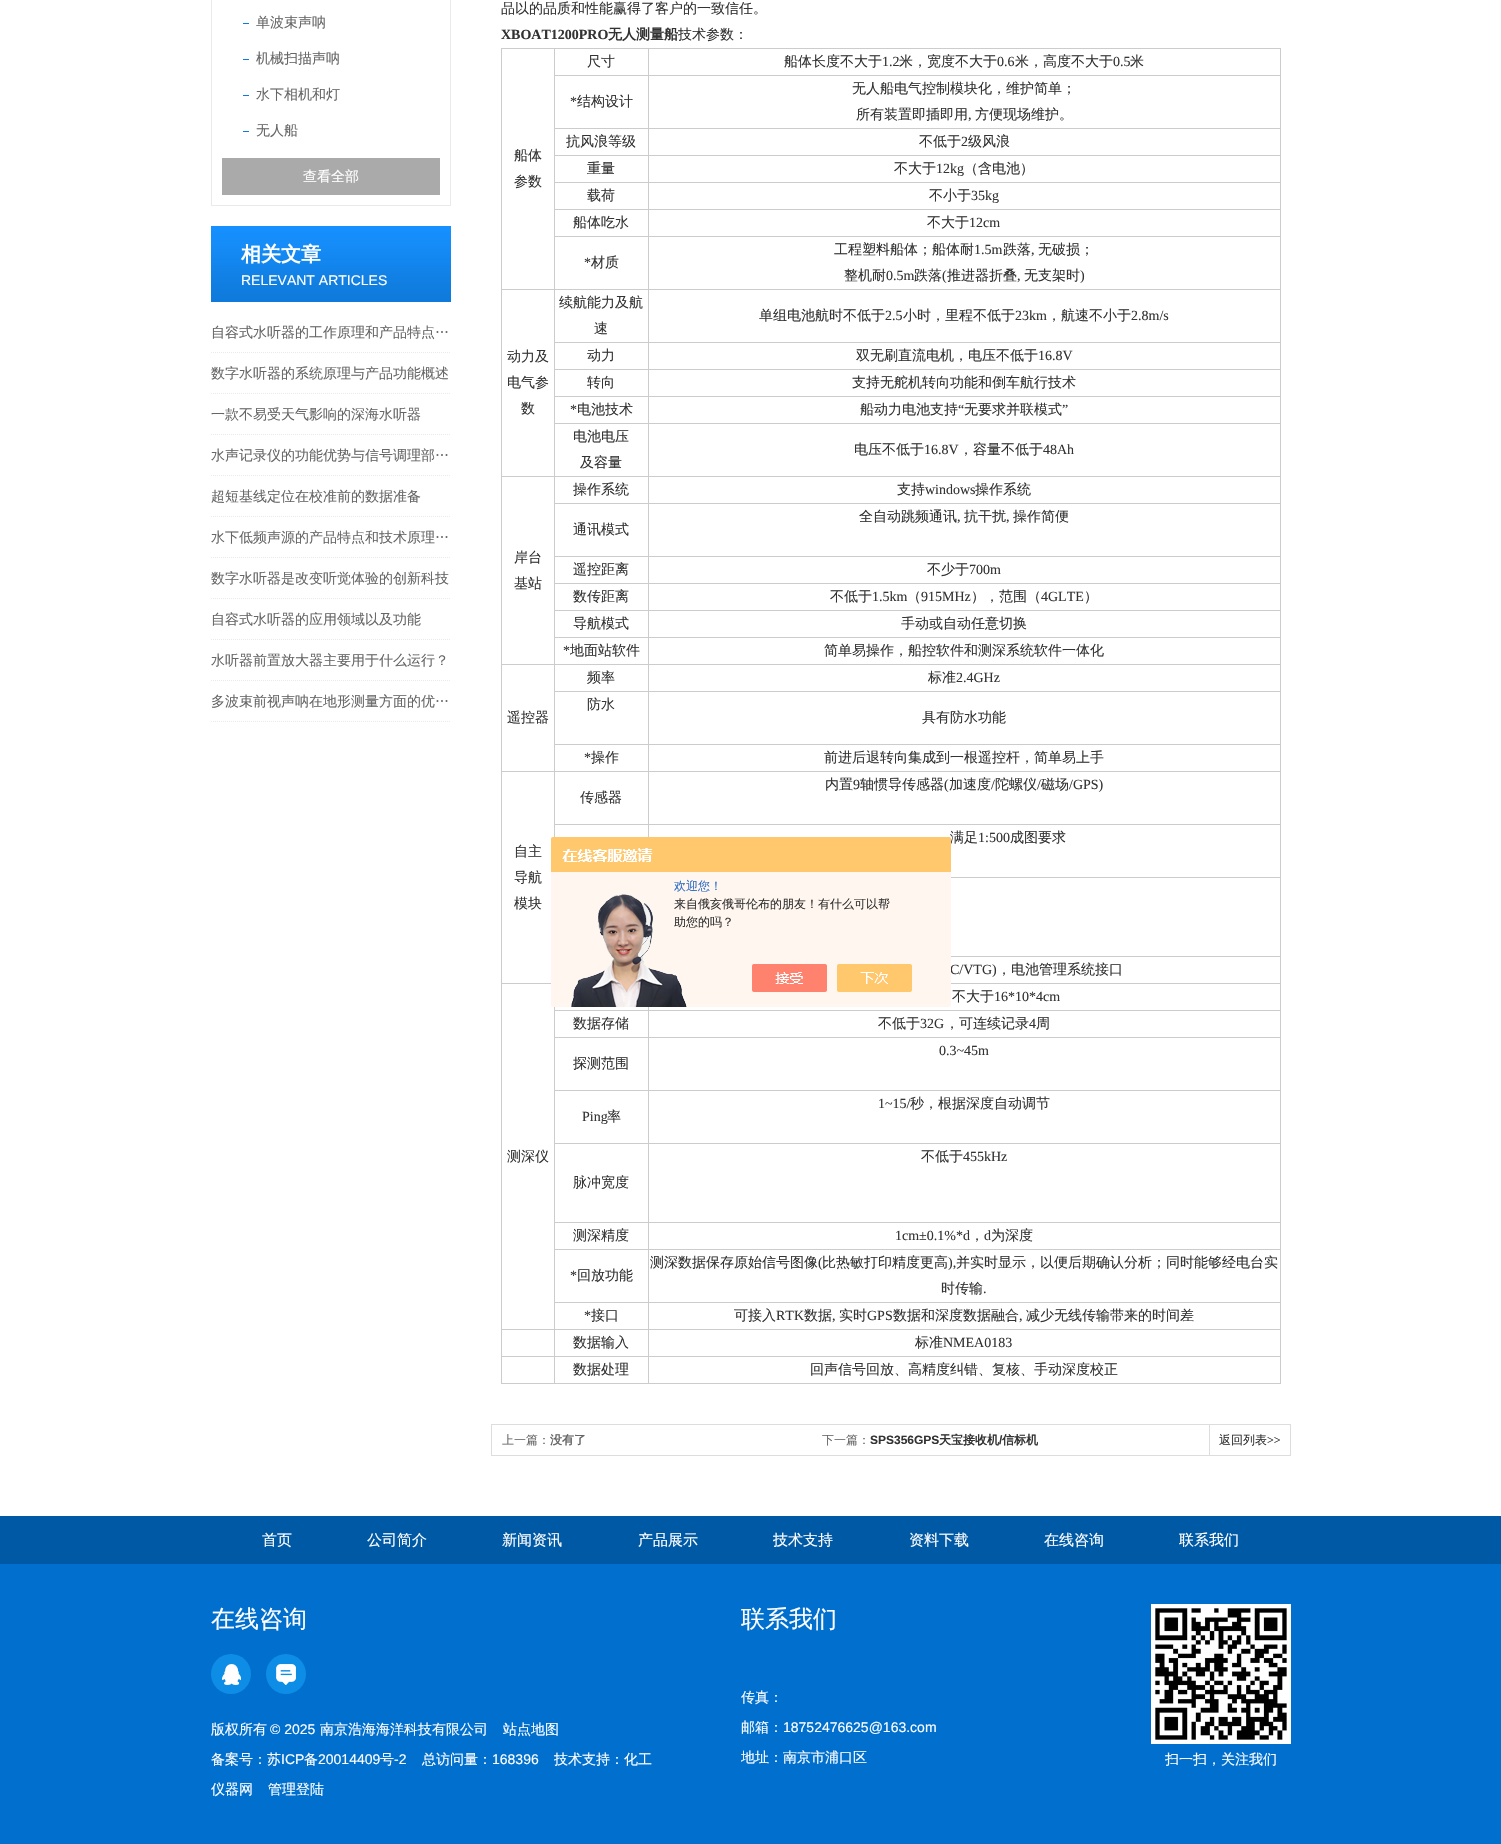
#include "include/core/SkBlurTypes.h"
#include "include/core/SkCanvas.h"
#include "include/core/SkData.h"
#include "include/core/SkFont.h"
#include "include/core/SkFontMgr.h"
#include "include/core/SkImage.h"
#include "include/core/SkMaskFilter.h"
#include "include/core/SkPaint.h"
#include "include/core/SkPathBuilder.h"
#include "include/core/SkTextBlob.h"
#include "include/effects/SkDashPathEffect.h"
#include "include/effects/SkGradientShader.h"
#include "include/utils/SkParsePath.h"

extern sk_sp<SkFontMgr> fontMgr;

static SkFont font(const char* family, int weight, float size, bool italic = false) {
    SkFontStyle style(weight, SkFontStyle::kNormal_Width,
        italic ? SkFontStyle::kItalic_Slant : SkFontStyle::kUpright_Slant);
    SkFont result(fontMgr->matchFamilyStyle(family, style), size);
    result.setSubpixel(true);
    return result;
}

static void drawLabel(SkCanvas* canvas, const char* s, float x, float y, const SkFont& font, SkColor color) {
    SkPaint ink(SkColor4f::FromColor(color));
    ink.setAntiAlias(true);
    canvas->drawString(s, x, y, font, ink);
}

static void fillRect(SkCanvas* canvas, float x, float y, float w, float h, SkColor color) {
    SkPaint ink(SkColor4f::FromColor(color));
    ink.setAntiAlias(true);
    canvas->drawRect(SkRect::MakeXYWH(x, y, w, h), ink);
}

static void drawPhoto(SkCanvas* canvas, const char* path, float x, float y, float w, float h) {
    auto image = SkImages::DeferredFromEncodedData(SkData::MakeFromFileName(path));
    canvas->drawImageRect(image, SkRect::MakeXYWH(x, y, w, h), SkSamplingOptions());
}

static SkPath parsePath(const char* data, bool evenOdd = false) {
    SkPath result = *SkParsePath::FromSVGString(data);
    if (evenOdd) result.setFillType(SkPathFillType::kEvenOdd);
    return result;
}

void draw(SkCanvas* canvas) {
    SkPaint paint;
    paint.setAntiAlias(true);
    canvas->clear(0xFFFFFFFF);
    fillRect(canvas, 450, 0, 1, 206, 0xFFEAEAEA);
    fillRect(canvas, 211, 205, 240, 1, 0xFFEAEAEA);
    fillRect(canvas, 211, 0, 1, 206, 0xFFEAEAEA);
    fillRect(canvas, 243, 23, 6, 1, 0xFF0F7ADB);
    SkFont font1 = font("WenQuanYi Zen Hei", 500, 14);
    drawLabel(canvas, "单波束声呐", 256, 27, font1, 0xFF666666);
    fillRect(canvas, 243, 59, 6, 1, 0xFF0F7ADB);
    drawLabel(canvas, "机械扫描声呐", 256, 63, font1, 0xFF666666);
    fillRect(canvas, 243, 95, 6, 1, 0xFF0F7ADB);
    drawLabel(canvas, "水下相机和灯", 256, 99, font1, 0xFF666666);
    fillRect(canvas, 243, 131, 6, 1, 0xFF0F7ADB);
    drawLabel(canvas, "无人船", 256, 135, font1, 0xFF666666);
    fillRect(canvas, 222, 158, 218, 37, 0xFFAAAAAA);
    drawLabel(canvas, "查看全部", 303, 181, font1, 0xFFFFFFFF);
    drawPhoto(canvas, "assets/img1.png", 211, 226, 240, 76);
    SkFont font2 = font("WenQuanYi Zen Hei", 700, 20);
    drawLabel(canvas, "相关文章", 241, 261, font2, 0xFFFFFFFF);
    SkFont font3 = font("Liberation Sans", 400, 14);
    drawLabel(canvas, "RELEVANT ARTICLES", 241, 285, font3, 0xFFFFFFFF);
    paint.setStroke(true);
    paint.setStrokeWidth(1);
    paint.setColor(0xFFEAEAEA);
    paint.setPathEffect(SkDashPathEffect::Make({{1, 1}}, 0));
    canvas->drawPath(parsePath("M211 352.5H451"), paint);
    paint.setPathEffect(nullptr);
    drawLabel(canvas, "自容式水听器的工作原理和产品特点…", 211, 337, font1, 0xFF666666);
    paint.setPathEffect(SkDashPathEffect::Make({{1, 1}}, 0));
    canvas->drawPath(parsePath("M211 393.5H451"), paint);
    paint.setPathEffect(nullptr);
    drawLabel(canvas, "数字水听器的系统原理与产品功能概述", 211, 378, font1, 0xFF666666);
    paint.setPathEffect(SkDashPathEffect::Make({{1, 1}}, 0));
    canvas->drawPath(parsePath("M211 434.5H451"), paint);
    paint.setPathEffect(nullptr);
    drawLabel(canvas, "一款不易受天气影响的深海水听器", 211, 419, font1, 0xFF666666);
    paint.setPathEffect(SkDashPathEffect::Make({{1, 1}}, 0));
    canvas->drawPath(parsePath("M211 475.5H451"), paint);
    paint.setPathEffect(nullptr);
    drawLabel(canvas, "水声记录仪的功能优势与信号调理部…", 211, 460, font1, 0xFF666666);
    paint.setPathEffect(SkDashPathEffect::Make({{1, 1}}, 0));
    canvas->drawPath(parsePath("M211 516.5H451"), paint);
    paint.setPathEffect(nullptr);
    drawLabel(canvas, "超短基线定位在校准前的数据准备", 211, 501, font1, 0xFF666666);
    paint.setPathEffect(SkDashPathEffect::Make({{1, 1}}, 0));
    canvas->drawPath(parsePath("M211 557.5H451"), paint);
    paint.setPathEffect(nullptr);
    drawLabel(canvas, "水下低频声源的产品特点和技术原理…", 211, 542, font1, 0xFF666666);
    paint.setPathEffect(SkDashPathEffect::Make({{1, 1}}, 0));
    canvas->drawPath(parsePath("M211 598.5H451"), paint);
    paint.setPathEffect(nullptr);
    drawLabel(canvas, "数字水听器是改变听觉体验的创新科技", 211, 583, font1, 0xFF666666);
    paint.setPathEffect(SkDashPathEffect::Make({{1, 1}}, 0));
    canvas->drawPath(parsePath("M211 639.5H451"), paint);
    paint.setPathEffect(nullptr);
    drawLabel(canvas, "自容式水听器的应用领域以及功能", 211, 624, font1, 0xFF666666);
    paint.setPathEffect(SkDashPathEffect::Make({{1, 1}}, 0));
    canvas->drawPath(parsePath("M211 680.5H451"), paint);
    paint.setPathEffect(nullptr);
    drawLabel(canvas, "水听器前置放大器主要用于什么运行？", 211, 665, font1, 0xFF666666);
    paint.setPathEffect(SkDashPathEffect::Make({{1, 1}}, 0));
    canvas->drawPath(parsePath("M211 721.5H451"), paint);
    paint.setPathEffect(nullptr);
    drawLabel(canvas, "多波束前视声呐在地形测量方面的优…", 211, 706, font1, 0xFF666666);
    drawLabel(canvas, "品以的品质和性能赢得了客户的一致信任。", 501, 13, font1, 0xFF333333);
    SkFont font4 = font("Liberation Serif", 700, 14);
    drawLabel(canvas, "XBOAT1200PRO", 501, 39, font4, 0xFF333333);
    SkFont font5 = font("WenQuanYi Zen Hei", 700, 14);
    drawLabel(canvas, "无人测量船", 608, 39, font5, 0xFF333333);
    drawLabel(canvas, "技术参数：", 678, 39, font1, 0xFF333333);
    fillRect(canvas, 648, 48, 633, 1, 0xFFCCCCCC);
    fillRect(canvas, 648, 75, 633, 1, 0xFFCCCCCC);
    fillRect(canvas, 648, 128, 633, 1, 0xFFCCCCCC);
    fillRect(canvas, 648, 155, 633, 1, 0xFFCCCCCC);
    fillRect(canvas, 648, 182, 633, 1, 0xFFCCCCCC);
    fillRect(canvas, 648, 209, 633, 1, 0xFFCCCCCC);
    fillRect(canvas, 648, 236, 633, 1, 0xFFCCCCCC);
    fillRect(canvas, 648, 289, 633, 1, 0xFFCCCCCC);
    fillRect(canvas, 648, 342, 633, 1, 0xFFCCCCCC);
    fillRect(canvas, 648, 369, 633, 1, 0xFFCCCCCC);
    fillRect(canvas, 648, 396, 633, 1, 0xFFCCCCCC);
    fillRect(canvas, 648, 423, 633, 1, 0xFFCCCCCC);
    fillRect(canvas, 648, 476, 633, 1, 0xFFCCCCCC);
    fillRect(canvas, 648, 503, 633, 1, 0xFFCCCCCC);
    fillRect(canvas, 648, 556, 633, 1, 0xFFCCCCCC);
    fillRect(canvas, 648, 583, 633, 1, 0xFFCCCCCC);
    fillRect(canvas, 648, 610, 633, 1, 0xFFCCCCCC);
    fillRect(canvas, 648, 637, 633, 1, 0xFFCCCCCC);
    fillRect(canvas, 648, 664, 633, 1, 0xFFCCCCCC);
    fillRect(canvas, 648, 691, 633, 1, 0xFFCCCCCC);
    fillRect(canvas, 648, 744, 633, 1, 0xFFCCCCCC);
    fillRect(canvas, 648, 771, 633, 1, 0xFFCCCCCC);
    fillRect(canvas, 648, 824, 633, 1, 0xFFCCCCCC);
    fillRect(canvas, 648, 824, 1, 13, 0xFFCCCCCC);
    fillRect(canvas, 554, 824, 95, 1, 0xFFCCCCCC);
    fillRect(canvas, 648, 771, 1, 54, 0xFFCCCCCC);
    fillRect(canvas, 554, 771, 95, 1, 0xFFCCCCCC);
    fillRect(canvas, 648, 744, 1, 28, 0xFFCCCCCC);
    fillRect(canvas, 554, 744, 95, 1, 0xFFCCCCCC);
    fillRect(canvas, 648, 691, 1, 54, 0xFFCCCCCC);
    fillRect(canvas, 554, 691, 95, 1, 0xFFCCCCCC);
    fillRect(canvas, 648, 664, 1, 28, 0xFFCCCCCC);
    fillRect(canvas, 554, 664, 95, 1, 0xFFCCCCCC);
    fillRect(canvas, 648, 637, 1, 28, 0xFFCCCCCC);
    fillRect(canvas, 554, 637, 95, 1, 0xFFCCCCCC);
    fillRect(canvas, 648, 610, 1, 28, 0xFFCCCCCC);
    fillRect(canvas, 554, 610, 95, 1, 0xFFCCCCCC);
    fillRect(canvas, 648, 583, 1, 28, 0xFFCCCCCC);
    fillRect(canvas, 554, 583, 95, 1, 0xFFCCCCCC);
    fillRect(canvas, 648, 556, 1, 28, 0xFFCCCCCC);
    fillRect(canvas, 554, 556, 95, 1, 0xFFCCCCCC);
    fillRect(canvas, 648, 503, 1, 54, 0xFFCCCCCC);
    fillRect(canvas, 554, 503, 95, 1, 0xFFCCCCCC);
    fillRect(canvas, 648, 476, 1, 28, 0xFFCCCCCC);
    fillRect(canvas, 554, 476, 95, 1, 0xFFCCCCCC);
    fillRect(canvas, 648, 423, 1, 54, 0xFFCCCCCC);
    fillRect(canvas, 554, 423, 95, 1, 0xFFCCCCCC);
    fillRect(canvas, 648, 396, 1, 28, 0xFFCCCCCC);
    fillRect(canvas, 554, 396, 95, 1, 0xFFCCCCCC);
    fillRect(canvas, 648, 369, 1, 28, 0xFFCCCCCC);
    fillRect(canvas, 554, 369, 95, 1, 0xFFCCCCCC);
    fillRect(canvas, 648, 342, 1, 28, 0xFFCCCCCC);
    fillRect(canvas, 554, 342, 95, 1, 0xFFCCCCCC);
    fillRect(canvas, 648, 289, 1, 54, 0xFFCCCCCC);
    fillRect(canvas, 554, 289, 95, 1, 0xFFCCCCCC);
    fillRect(canvas, 648, 236, 1, 54, 0xFFCCCCCC);
    fillRect(canvas, 554, 236, 95, 1, 0xFFCCCCCC);
    fillRect(canvas, 648, 209, 1, 28, 0xFFCCCCCC);
    fillRect(canvas, 554, 209, 95, 1, 0xFFCCCCCC);
    fillRect(canvas, 648, 182, 1, 28, 0xFFCCCCCC);
    fillRect(canvas, 554, 182, 95, 1, 0xFFCCCCCC);
    fillRect(canvas, 648, 155, 1, 28, 0xFFCCCCCC);
    fillRect(canvas, 554, 155, 95, 1, 0xFFCCCCCC);
    fillRect(canvas, 648, 128, 1, 28, 0xFFCCCCCC);
    fillRect(canvas, 554, 128, 95, 1, 0xFFCCCCCC);
    fillRect(canvas, 648, 75, 1, 54, 0xFFCCCCCC);
    fillRect(canvas, 554, 75, 95, 1, 0xFFCCCCCC);
    fillRect(canvas, 648, 48, 1, 28, 0xFFCCCCCC);
    fillRect(canvas, 554, 48, 95, 1, 0xFFCCCCCC);
    fillRect(canvas, 554, 824, 1, 13, 0xFFCCCCCC);
    fillRect(canvas, 554, 771, 1, 54, 0xFFCCCCCC);
    fillRect(canvas, 501, 771, 54, 1, 0xFFCCCCCC);
    fillRect(canvas, 554, 744, 1, 28, 0xFFCCCCCC);
    fillRect(canvas, 554, 691, 1, 54, 0xFFCCCCCC);
    fillRect(canvas, 554, 664, 1, 28, 0xFFCCCCCC);
    fillRect(canvas, 501, 664, 54, 1, 0xFFCCCCCC);
    fillRect(canvas, 554, 637, 1, 28, 0xFFCCCCCC);
    fillRect(canvas, 554, 610, 1, 28, 0xFFCCCCCC);
    fillRect(canvas, 554, 583, 1, 28, 0xFFCCCCCC);
    fillRect(canvas, 554, 556, 1, 28, 0xFFCCCCCC);
    fillRect(canvas, 554, 503, 1, 54, 0xFFCCCCCC);
    fillRect(canvas, 554, 476, 1, 28, 0xFFCCCCCC);
    fillRect(canvas, 501, 476, 54, 1, 0xFFCCCCCC);
    fillRect(canvas, 554, 423, 1, 54, 0xFFCCCCCC);
    fillRect(canvas, 554, 396, 1, 28, 0xFFCCCCCC);
    fillRect(canvas, 554, 369, 1, 28, 0xFFCCCCCC);
    fillRect(canvas, 554, 342, 1, 28, 0xFFCCCCCC);
    fillRect(canvas, 554, 289, 1, 54, 0xFFCCCCCC);
    fillRect(canvas, 501, 289, 54, 1, 0xFFCCCCCC);
    fillRect(canvas, 554, 236, 1, 54, 0xFFCCCCCC);
    fillRect(canvas, 554, 209, 1, 28, 0xFFCCCCCC);
    fillRect(canvas, 554, 182, 1, 28, 0xFFCCCCCC);
    fillRect(canvas, 554, 155, 1, 28, 0xFFCCCCCC);
    fillRect(canvas, 554, 128, 1, 28, 0xFFCCCCCC);
    fillRect(canvas, 554, 75, 1, 54, 0xFFCCCCCC);
    fillRect(canvas, 554, 48, 1, 28, 0xFFCCCCCC);
    drawLabel(canvas, "尺寸", 587, 66, font1, 0xFF333333);
    fillRect(canvas, 951, 877, 330, 1, 0xFFCCCCCC);
    fillRect(canvas, 951, 956, 330, 1, 0xFFCCCCCC);
    fillRect(canvas, 951, 983, 330, 1, 0xFFCCCCCC);
    fillRect(canvas, 648, 1010, 633, 1, 0xFFCCCCCC);
    fillRect(canvas, 648, 1037, 633, 1, 0xFFCCCCCC);
    fillRect(canvas, 648, 1090, 633, 1, 0xFFCCCCCC);
    fillRect(canvas, 648, 1143, 633, 1, 0xFFCCCCCC);
    fillRect(canvas, 648, 1222, 633, 1, 0xFFCCCCCC);
    fillRect(canvas, 648, 1249, 633, 1, 0xFFCCCCCC);
    fillRect(canvas, 648, 1302, 633, 1, 0xFFCCCCCC);
    fillRect(canvas, 648, 1329, 633, 1, 0xFFCCCCCC);
    fillRect(canvas, 648, 1356, 633, 1, 0xFFCCCCCC);
    fillRect(canvas, 1280, 1356, 1, 28, 0xFFCCCCCC);
    fillRect(canvas, 1280, 1329, 1, 28, 0xFFCCCCCC);
    fillRect(canvas, 1280, 1302, 1, 28, 0xFFCCCCCC);
    fillRect(canvas, 1280, 1249, 1, 54, 0xFFCCCCCC);
    fillRect(canvas, 1280, 1222, 1, 28, 0xFFCCCCCC);
    fillRect(canvas, 1280, 1143, 1, 80, 0xFFCCCCCC);
    fillRect(canvas, 1280, 1090, 1, 54, 0xFFCCCCCC);
    fillRect(canvas, 1280, 1037, 1, 54, 0xFFCCCCCC);
    fillRect(canvas, 1280, 1010, 1, 28, 0xFFCCCCCC);
    fillRect(canvas, 1280, 983, 1, 28, 0xFFCCCCCC);
    fillRect(canvas, 1280, 956, 1, 28, 0xFFCCCCCC);
    fillRect(canvas, 1280, 877, 1, 80, 0xFFCCCCCC);
    fillRect(canvas, 1280, 824, 1, 54, 0xFFCCCCCC);
    fillRect(canvas, 1280, 771, 1, 54, 0xFFCCCCCC);
    fillRect(canvas, 1280, 744, 1, 28, 0xFFCCCCCC);
    fillRect(canvas, 1280, 691, 1, 54, 0xFFCCCCCC);
    fillRect(canvas, 1280, 664, 1, 28, 0xFFCCCCCC);
    fillRect(canvas, 1280, 637, 1, 28, 0xFFCCCCCC);
    fillRect(canvas, 1280, 610, 1, 28, 0xFFCCCCCC);
    fillRect(canvas, 1280, 583, 1, 28, 0xFFCCCCCC);
    fillRect(canvas, 1280, 556, 1, 28, 0xFFCCCCCC);
    fillRect(canvas, 1280, 503, 1, 54, 0xFFCCCCCC);
    fillRect(canvas, 1280, 476, 1, 28, 0xFFCCCCCC);
    fillRect(canvas, 1280, 423, 1, 54, 0xFFCCCCCC);
    fillRect(canvas, 1280, 396, 1, 28, 0xFFCCCCCC);
    fillRect(canvas, 1280, 369, 1, 28, 0xFFCCCCCC);
    fillRect(canvas, 1280, 342, 1, 28, 0xFFCCCCCC);
    fillRect(canvas, 1280, 289, 1, 54, 0xFFCCCCCC);
    fillRect(canvas, 1280, 236, 1, 54, 0xFFCCCCCC);
    fillRect(canvas, 1280, 209, 1, 28, 0xFFCCCCCC);
    fillRect(canvas, 1280, 182, 1, 28, 0xFFCCCCCC);
    fillRect(canvas, 1280, 155, 1, 28, 0xFFCCCCCC);
    fillRect(canvas, 1280, 128, 1, 28, 0xFFCCCCCC);
    fillRect(canvas, 1280, 75, 1, 54, 0xFFCCCCCC);
    fillRect(canvas, 1280, 48, 1, 28, 0xFFCCCCCC);
    drawLabel(canvas, "船体长度不大于", 784, 66, font1, 0xFF333333);
    SkFont font6 = font("Liberation Serif", 400, 14);
    drawLabel(canvas, "1.2", 882, 66, font6, 0xFF333333);
    drawLabel(canvas, "米，宽度不大于", 899, 66, font1, 0xFF333333);
    drawLabel(canvas, "0.6", 997, 66, font6, 0xFF333333);
    drawLabel(canvas, "米，高度不大于", 1015, 66, font1, 0xFF333333);
    drawLabel(canvas, "0.5", 1113, 66, font6, 0xFF333333);
    drawLabel(canvas, "米", 1130, 66, font1, 0xFF333333);
    fillRect(canvas, 501, 48, 54, 1, 0xFFCCCCCC);
    fillRect(canvas, 501, 983, 54, 1, 0xFFCCCCCC);
    fillRect(canvas, 648, 1383, 633, 1, 0xFFCCCCCC);
    fillRect(canvas, 648, 1356, 1, 28, 0xFFCCCCCC);
    fillRect(canvas, 554, 1356, 95, 1, 0xFFCCCCCC);
    fillRect(canvas, 648, 1329, 1, 28, 0xFFCCCCCC);
    fillRect(canvas, 554, 1329, 95, 1, 0xFFCCCCCC);
    fillRect(canvas, 554, 1383, 95, 1, 0xFFCCCCCC);
    fillRect(canvas, 554, 1356, 1, 28, 0xFFCCCCCC);
    fillRect(canvas, 501, 1356, 54, 1, 0xFFCCCCCC);
    fillRect(canvas, 554, 1329, 1, 28, 0xFFCCCCCC);
    fillRect(canvas, 501, 1329, 54, 1, 0xFFCCCCCC);
    fillRect(canvas, 501, 1383, 54, 1, 0xFFCCCCCC);
    fillRect(canvas, 501, 1356, 1, 28, 0xFFCCCCCC);
    fillRect(canvas, 501, 1329, 1, 28, 0xFFCCCCCC);
    fillRect(canvas, 501, 983, 1, 347, 0xFFCCCCCC);
    fillRect(canvas, 501, 771, 1, 213, 0xFFCCCCCC);
    fillRect(canvas, 501, 664, 1, 108, 0xFFCCCCCC);
    fillRect(canvas, 501, 476, 1, 189, 0xFFCCCCCC);
    fillRect(canvas, 501, 289, 1, 188, 0xFFCCCCCC);
    fillRect(canvas, 501, 48, 1, 242, 0xFFCCCCCC);
    drawLabel(canvas, "船体", 514, 160, font1, 0xFF333333);
    drawLabel(canvas, "参数", 514, 186, font1, 0xFF333333);
    drawLabel(canvas, "*", 570, 106, font6, 0xFF333333);
    drawLabel(canvas, "结构设计", 577, 106, font1, 0xFF333333);
    drawLabel(canvas, "无人船电气控制模块化，维护简单；", 852, 93, font1, 0xFF333333);
    drawLabel(canvas, "所有装置即插即用", 856, 119, font1, 0xFF333333);
    drawLabel(canvas, ",", 968, 119, font6, 0xFF333333);
    drawLabel(canvas, "方便现场维护。", 975, 119, font1, 0xFF333333);
    drawLabel(canvas, "抗风浪等级", 566, 146, font1, 0xFF333333);
    drawLabel(canvas, "不低于", 919, 146, font1, 0xFF333333);
    drawLabel(canvas, "2", 961, 146, font6, 0xFF333333);
    drawLabel(canvas, "级风浪", 968, 146, font1, 0xFF333333);
    drawLabel(canvas, "重量", 587, 173, font1, 0xFF333333);
    drawLabel(canvas, "不大于", 894, 173, font1, 0xFF333333);
    drawLabel(canvas, "12kg", 936, 173, font6, 0xFF333333);
    drawLabel(canvas, "（含电池）", 964, 173, font1, 0xFF333333);
    drawLabel(canvas, "载荷", 587, 200, font1, 0xFF333333);
    drawLabel(canvas, "不小于", 929, 200, font1, 0xFF333333);
    drawLabel(canvas, "35kg", 971, 200, font6, 0xFF333333);
    drawLabel(canvas, "船体吃水", 573, 227, font1, 0xFF333333);
    drawLabel(canvas, "不大于", 927, 227, font1, 0xFF333333);
    drawLabel(canvas, "12cm", 969, 227, font6, 0xFF333333);
    drawLabel(canvas, "*", 584, 267, font6, 0xFF333333);
    drawLabel(canvas, "材质", 591, 267, font1, 0xFF333333);
    drawLabel(canvas, "工程塑料船体；船体耐", 834, 254, font1, 0xFF333333);
    drawLabel(canvas, "1.5m", 974, 254, font6, 0xFF333333);
    drawLabel(canvas, "跌落", 1003, 254, font1, 0xFF333333);
    drawLabel(canvas, ",", 1031, 254, font6, 0xFF333333);
    drawLabel(canvas, "无破损；", 1038, 254, font1, 0xFF333333);
    drawLabel(canvas, "整机耐", 844, 280, font1, 0xFF333333);
    drawLabel(canvas, "0.5m", 886, 280, font6, 0xFF333333);
    drawLabel(canvas, "跌落", 914, 280, font1, 0xFF333333);
    drawLabel(canvas, "(", 942, 280, font6, 0xFF333333);
    drawLabel(canvas, "推进器折叠", 947, 280, font1, 0xFF333333);
    drawLabel(canvas, ",", 1017, 280, font6, 0xFF333333);
    drawLabel(canvas, "无支架时", 1024, 280, font1, 0xFF333333);
    drawLabel(canvas, ")", 1080, 280, font6, 0xFF333333);
    drawLabel(canvas, "续航能力及航", 559, 307, font1, 0xFF333333);
    drawLabel(canvas, "速", 594, 333, font1, 0xFF333333);
    drawLabel(canvas, "单组电池航时不低于", 759, 320, font1, 0xFF333333);
    drawLabel(canvas, "2.5", 885, 320, font6, 0xFF333333);
    drawLabel(canvas, "小时，里程不低于", 903, 320, font1, 0xFF333333);
    drawLabel(canvas, "23km", 1015, 320, font6, 0xFF333333);
    drawLabel(canvas, "，航速不小于", 1047, 320, font1, 0xFF333333);
    drawLabel(canvas, "2.8m/s", 1131, 320, font6, 0xFF333333);
    drawLabel(canvas, "动力及", 507, 361, font1, 0xFF333333);
    drawLabel(canvas, "电气参", 507, 387, font1, 0xFF333333);
    drawLabel(canvas, "数", 521, 413, font1, 0xFF333333);
    drawLabel(canvas, "动力", 587, 360, font1, 0xFF333333);
    drawLabel(canvas, "双无刷直流电机，电压不低于", 856, 360, font1, 0xFF333333);
    drawLabel(canvas, "16.8V", 1038, 360, font6, 0xFF333333);
    drawLabel(canvas, "转向", 587, 387, font1, 0xFF333333);
    drawLabel(canvas, "支持无舵机转向功能和倒车航行技术", 852, 387, font1, 0xFF333333);
    drawLabel(canvas, "*", 570, 414, font6, 0xFF333333);
    drawLabel(canvas, "电池技术", 577, 414, font1, 0xFF333333);
    drawLabel(canvas, "船动力电池支持", 860, 414, font1, 0xFF333333);
    drawLabel(canvas, "“", 958, 414, font6, 0xFF333333);
    drawLabel(canvas, "无要求并联模式", 964, 414, font1, 0xFF333333);
    drawLabel(canvas, "”", 1062, 414, font6, 0xFF333333);
    drawLabel(canvas, "电池电压", 573, 441, font1, 0xFF333333);
    drawLabel(canvas, "及容量", 580, 467, font1, 0xFF333333);
    drawLabel(canvas, "电压不低于", 854, 454, font1, 0xFF333333);
    drawLabel(canvas, "16.8V", 924, 454, font6, 0xFF333333);
    drawLabel(canvas, "，容量不低于", 959, 454, font1, 0xFF333333);
    drawLabel(canvas, "48Ah", 1043, 454, font6, 0xFF333333);
    drawLabel(canvas, "操作系统", 573, 494, font1, 0xFF333333);
    drawLabel(canvas, "支持", 897, 494, font1, 0xFF333333);
    drawLabel(canvas, "windows", 925, 494, font6, 0xFF333333);
    drawLabel(canvas, "操作系统", 975, 494, font1, 0xFF333333);
    drawLabel(canvas, "岸台", 514, 562, font1, 0xFF333333);
    drawLabel(canvas, "基站", 514, 588, font1, 0xFF333333);
    drawLabel(canvas, "全自动跳频通讯", 859, 521, font1, 0xFF333333);
    drawLabel(canvas, ",", 957, 521, font6, 0xFF333333);
    drawLabel(canvas, "抗干扰", 964, 521, font1, 0xFF333333);
    drawLabel(canvas, ",", 1006, 521, font6, 0xFF333333);
    drawLabel(canvas, "操作简便", 1013, 521, font1, 0xFF333333);
    drawLabel(canvas, "通讯模式", 573, 534, font1, 0xFF333333);
    drawLabel(canvas, "遥控距离", 573, 574, font1, 0xFF333333);
    drawLabel(canvas, "不少于", 927, 574, font1, 0xFF333333);
    drawLabel(canvas, "700m", 969, 574, font6, 0xFF333333);
    drawLabel(canvas, "数传距离", 573, 601, font1, 0xFF333333);
    drawLabel(canvas, "不低于", 830, 601, font1, 0xFF333333);
    drawLabel(canvas, "1.5km", 872, 601, font6, 0xFF333333);
    drawLabel(canvas, "（", 907, 601, font1, 0xFF333333);
    drawLabel(canvas, "915MHz", 921, 601, font6, 0xFF333333);
    drawLabel(canvas, "），范围（", 971, 601, font1, 0xFF333333);
    drawLabel(canvas, "4GLTE", 1041, 601, font6, 0xFF333333);
    drawLabel(canvas, "）", 1084, 601, font1, 0xFF333333);
    drawLabel(canvas, "导航模式", 573, 628, font1, 0xFF333333);
    drawLabel(canvas, "手动或自动任意切换", 901, 628, font1, 0xFF333333);
    drawLabel(canvas, "*", 563, 655, font6, 0xFF333333);
    drawLabel(canvas, "地面站软件", 570, 655, font1, 0xFF333333);
    drawLabel(canvas, "简单易操作，船控软件和测深系统软件一体化", 824, 655, font1, 0xFF333333);
    drawLabel(canvas, "频率", 587, 682, font1, 0xFF333333);
    drawLabel(canvas, "标准", 928, 682, font1, 0xFF333333);
    drawLabel(canvas, "2.4GHz", 956, 682, font6, 0xFF333333);
    drawLabel(canvas, "遥控器", 507, 722, font1, 0xFF333333);
    drawLabel(canvas, "防水", 587, 709, font1, 0xFF333333);
    drawLabel(canvas, "具有防水功能", 922, 722, font1, 0xFF333333);
    drawLabel(canvas, "*", 584, 762, font6, 0xFF333333);
    drawLabel(canvas, "操作", 591, 762, font1, 0xFF333333);
    drawLabel(canvas, "前进后退转向集成到一根遥控杆，简单易上手", 824, 762, font1, 0xFF333333);
    drawLabel(canvas, "内置", 825, 789, font1, 0xFF333333);
    drawLabel(canvas, "9", 853, 789, font6, 0xFF333333);
    drawLabel(canvas, "轴惯导传感器", 860, 789, font1, 0xFF333333);
    drawLabel(canvas, "(", 944, 789, font6, 0xFF333333);
    drawLabel(canvas, "加速度", 949, 789, font1, 0xFF333333);
    drawLabel(canvas, "/", 991, 789, font6, 0xFF333333);
    drawLabel(canvas, "陀螺仪", 995, 789, font1, 0xFF333333);
    drawLabel(canvas, "/", 1037, 789, font6, 0xFF333333);
    drawLabel(canvas, "磁场", 1041, 789, font1, 0xFF333333);
    drawLabel(canvas, "/GPS)", 1069, 789, font6, 0xFF333333);
    drawLabel(canvas, "传感器", 580, 802, font1, 0xFF333333);
    drawLabel(canvas, "自主", 514, 856, font1, 0xFF333333);
    drawLabel(canvas, "导航", 514, 882, font1, 0xFF333333);
    drawLabel(canvas, "模块", 514, 908, font1, 0xFF333333);
    drawLabel(canvas, "满足", 950, 842, font1, 0xFF333333);
    drawLabel(canvas, "1:500", 978, 842, font6, 0xFF333333);
    drawLabel(canvas, "成图要求", 1010, 842, font1, 0xFF333333);
    drawLabel(canvas, "C/VTG)", 950, 974, font6, 0xFF333333);
    drawLabel(canvas, "，电池管理系统接口", 997, 974, font1, 0xFF333333);
    fillRect(canvas, 648, 1302, 1, 28, 0xFFCCCCCC);
    fillRect(canvas, 554, 1302, 95, 1, 0xFFCCCCCC);
    fillRect(canvas, 648, 1249, 1, 54, 0xFFCCCCCC);
    fillRect(canvas, 554, 1249, 95, 1, 0xFFCCCCCC);
    fillRect(canvas, 648, 1222, 1, 28, 0xFFCCCCCC);
    fillRect(canvas, 554, 1222, 95, 1, 0xFFCCCCCC);
    fillRect(canvas, 648, 1143, 1, 80, 0xFFCCCCCC);
    fillRect(canvas, 554, 1143, 95, 1, 0xFFCCCCCC);
    fillRect(canvas, 648, 1090, 1, 54, 0xFFCCCCCC);
    fillRect(canvas, 554, 1090, 95, 1, 0xFFCCCCCC);
    fillRect(canvas, 648, 1037, 1, 54, 0xFFCCCCCC);
    fillRect(canvas, 554, 1037, 95, 1, 0xFFCCCCCC);
    fillRect(canvas, 648, 1010, 1, 28, 0xFFCCCCCC);
    fillRect(canvas, 554, 1010, 95, 1, 0xFFCCCCCC);
    fillRect(canvas, 648, 1007, 1, 4, 0xFFCCCCCC);
    drawLabel(canvas, "不大于", 952, 1001, font1, 0xFF333333);
    drawLabel(canvas, "16*10*4cm", 994, 1001, font6, 0xFF333333);
    drawLabel(canvas, "测深仪", 507, 1161, font1, 0xFF333333);
    fillRect(canvas, 554, 1302, 1, 28, 0xFFCCCCCC);
    fillRect(canvas, 554, 1249, 1, 54, 0xFFCCCCCC);
    fillRect(canvas, 554, 1222, 1, 28, 0xFFCCCCCC);
    fillRect(canvas, 554, 1143, 1, 80, 0xFFCCCCCC);
    fillRect(canvas, 554, 1090, 1, 54, 0xFFCCCCCC);
    fillRect(canvas, 554, 1037, 1, 54, 0xFFCCCCCC);
    fillRect(canvas, 554, 1007, 1, 31, 0xFFCCCCCC);
    drawLabel(canvas, "数据存储", 573, 1028, font1, 0xFF333333);
    drawLabel(canvas, "不低于", 878, 1028, font1, 0xFF333333);
    drawLabel(canvas, "32G", 920, 1028, font6, 0xFF333333);
    drawLabel(canvas, "，可连续记录", 945, 1028, font1, 0xFF333333);
    drawLabel(canvas, "4", 1029, 1028, font6, 0xFF333333);
    drawLabel(canvas, "周", 1036, 1028, font1, 0xFF333333);
    drawLabel(canvas, "0.3~45m", 939, 1055, font6, 0xFF333333);
    drawLabel(canvas, "探测范围", 573, 1068, font1, 0xFF333333);
    drawLabel(canvas, "1~15/", 878, 1108, font6, 0xFF333333);
    drawLabel(canvas, "秒，根据深度自动调节", 910, 1108, font1, 0xFF333333);
    drawLabel(canvas, "Ping", 582, 1121, font6, 0xFF333333);
    drawLabel(canvas, "率", 607, 1121, font1, 0xFF333333);
    drawLabel(canvas, "不低于", 921, 1161, font1, 0xFF333333);
    drawLabel(canvas, "455kHz", 963, 1161, font6, 0xFF333333);
    drawLabel(canvas, "脉冲宽度", 573, 1187, font1, 0xFF333333);
    drawLabel(canvas, "测深精度", 573, 1240, font1, 0xFF333333);
    drawLabel(canvas, "1cm±0.1%*d", 895, 1240, font6, 0xFF333333);
    drawLabel(canvas, "，", 970, 1240, font1, 0xFF333333);
    drawLabel(canvas, "d", 984, 1240, font6, 0xFF333333);
    drawLabel(canvas, "为深度", 991, 1240, font1, 0xFF333333);
    drawLabel(canvas, "*", 570, 1280, font6, 0xFF333333);
    drawLabel(canvas, "回放功能", 577, 1280, font1, 0xFF333333);
    drawLabel(canvas, "测深数据保存原始信号图像", 650, 1267, font1, 0xFF333333);
    drawLabel(canvas, "(", 818, 1267, font6, 0xFF333333);
    drawLabel(canvas, "比热敏打印精度更高", 822, 1267, font1, 0xFF333333);
    drawLabel(canvas, "),", 948, 1267, font6, 0xFF333333);
    drawLabel(canvas, "并实时显示，以便后期确认分析；同时能够经电台实", 956, 1267, font1, 0xFF333333);
    drawLabel(canvas, "时传输", 941, 1293, font1, 0xFF333333);
    drawLabel(canvas, ".", 983, 1293, font6, 0xFF333333);
    drawLabel(canvas, "*", 584, 1320, font6, 0xFF333333);
    drawLabel(canvas, "接口", 591, 1320, font1, 0xFF333333);
    drawLabel(canvas, "可接入", 734, 1320, font1, 0xFF333333);
    drawLabel(canvas, "RTK", 776, 1320, font6, 0xFF333333);
    drawLabel(canvas, "数据", 804, 1320, font1, 0xFF333333);
    drawLabel(canvas, ",", 832, 1320, font6, 0xFF333333);
    drawLabel(canvas, "实时", 839, 1320, font1, 0xFF333333);
    drawLabel(canvas, "GPS", 867, 1320, font6, 0xFF333333);
    drawLabel(canvas, "数据和深度数据融合", 893, 1320, font1, 0xFF333333);
    drawLabel(canvas, ",", 1019, 1320, font6, 0xFF333333);
    drawLabel(canvas, "减少无线传输带来的时间差", 1026, 1320, font1, 0xFF333333);
    drawLabel(canvas, "数据输入", 573, 1347, font1, 0xFF333333);
    drawLabel(canvas, "标准", 915, 1347, font1, 0xFF333333);
    drawLabel(canvas, "NMEA0183", 943, 1347, font6, 0xFF333333);
    drawLabel(canvas, "数据处理", 573, 1374, font1, 0xFF333333);
    drawLabel(canvas, "回声信号回放、高精度纠错、复核、手动深度校正", 810, 1374, font1, 0xFF333333);
    paint.setColor(0xFFDDDDDD);
    canvas->drawRect(SkRect::MakeXYWH(491.5f, 1424.5f, 799, 31), paint);
    SkFont font7 = font("WenQuanYi Zen Hei", 500, 12);
    drawLabel(canvas, "上一篇：", 502, 1444, font7, 0xFF666666);
    SkFont font8 = font("WenQuanYi Zen Hei", 700, 12);
    drawLabel(canvas, "没有了", 550, 1444, font8, 0xFF666666);
    drawLabel(canvas, "下一篇：", 822, 1444, font7, 0xFF666666);
    SkFont font9 = font("Liberation Sans", 700, 12);
    drawLabel(canvas, "SPS356GPS", 870, 1444, font9, 0xFF333333);
    drawLabel(canvas, "天宝接收机", 939, 1444, font8, 0xFF333333);
    drawLabel(canvas, "/", 999, 1444, font9, 0xFF333333);
    drawLabel(canvas, "信标机", 1002, 1444, font8, 0xFF333333);
    fillRect(canvas, 1209, 1425, 1, 30, 0xFFDDDDDD);
    drawLabel(canvas, "返回列表", 1219, 1444, font7, 0xFF333333);
    SkFont font10 = font("Liberation Serif", 400, 12);
    drawLabel(canvas, ">>", 1267, 1444, font10, 0xFF333333);
    drawPhoto(canvas, "assets/img2.png", 551, 837, 400, 170);
    drawLabel(canvas, "欢迎您！", 674, 890, font7, 0xFF2E6EC6);
    drawLabel(canvas, "来自俄亥俄哥伦布的朋友！有什么可以帮", 674, 908, font7, 0xFF333333);
    drawLabel(canvas, "助您的吗？", 674, 926, font7, 0xFF333333);
    fillRect(canvas, 0, 1564, 1501, 280, 0xFF006FCE);
    fillRect(canvas, 0, 1516, 1501, 48, 0xFF0059A5);
    SkFont font11 = font("WenQuanYi Zen Hei", 500, 15);
    drawLabel(canvas, "首页", 262, 1545, font11, 0xFFFFFFFF);
    drawLabel(canvas, "公司简介", 367, 1545, font11, 0xFFFFFFFF);
    drawLabel(canvas, "新闻资讯", 502, 1545, font11, 0xFFFFFFFF);
    drawLabel(canvas, "产品展示", 638, 1545, font11, 0xFFFFFFFF);
    drawLabel(canvas, "技术支持", 773, 1545, font11, 0xFFFFFFFF);
    drawLabel(canvas, "资料下载", 909, 1545, font11, 0xFFFFFFFF);
    drawLabel(canvas, "在线咨询", 1044, 1545, font11, 0xFFFFFFFF);
    drawLabel(canvas, "联系我们", 1179, 1545, font11, 0xFFFFFFFF);
    SkFont font12 = font("WenQuanYi Zen Hei", 500, 24);
    drawLabel(canvas, "在线咨询", 211, 1627, font12, 0xFFFFFFFF);
    paint.setStroke(false);
    paint.setColor(0xFF0E8DE6);
    canvas->drawCircle(231, 1674, 20, paint);
    drawPhoto(canvas, "assets/img3.png", 222, 1664, 19, 21);
    canvas->drawCircle(286, 1674, 20, paint);
    drawPhoto(canvas, "assets/img4.png", 276, 1664, 20, 21);
    drawLabel(canvas, "版权所有", 211, 1734, font1, 0xFFFFFFFF);
    drawLabel(canvas, "© 2025", 270, 1734, font3, 0xFFFFFFFF);
    drawLabel(canvas, "南京浩海海洋科技有限公司", 320, 1734, font1, 0xFFFFFFFF);
    drawLabel(canvas, "站点地图", 503, 1734, font1, 0xFFFFFFFF);
    drawLabel(canvas, "备案号：苏", 211, 1764, font1, 0xFFFFFFFF);
    drawLabel(canvas, "ICP", 281, 1764, font3, 0xFFFFFFFF);
    drawLabel(canvas, "备", 304, 1764, font1, 0xFFFFFFFF);
    drawLabel(canvas, "20014409", 318, 1764, font3, 0xFFFFFFFF);
    drawLabel(canvas, "号", 380, 1764, font1, 0xFFFFFFFF);
    drawLabel(canvas, "-2", 394, 1764, font3, 0xFFFFFFFF);
    drawLabel(canvas, "总访问量：", 422, 1764, font1, 0xFFFFFFFF);
    drawLabel(canvas, "168396", 492, 1764, font3, 0xFFFFFFFF);
    drawLabel(canvas, "技术支持：化工", 554, 1764, font1, 0xFFFFFFFF);
    drawLabel(canvas, "仪器网", 211, 1794, font1, 0xFFFFFFFF);
    drawLabel(canvas, "管理登陆", 268, 1794, font1, 0xFFFFFFFF);
    drawLabel(canvas, "联系我们", 741, 1627, font12, 0xFFFFFFFF);
    drawLabel(canvas, "传真：", 741, 1702, font1, 0xFFFFFFFF);
    drawLabel(canvas, "邮箱：", 741, 1732, font1, 0xFFFFFFFF);
    drawLabel(canvas, "18752476625@163.com", 783, 1732, font3, 0xFFFFFFFF);
    drawLabel(canvas, "地址：南京市浦口区", 741, 1762, font1, 0xFFFFFFFF);
    drawPhoto(canvas, "assets/img5.png", 1151, 1604, 140, 140);
    drawLabel(canvas, "扫一扫，关注我们", 1165, 1764, font1, 0xFFFFFFFF);
}
